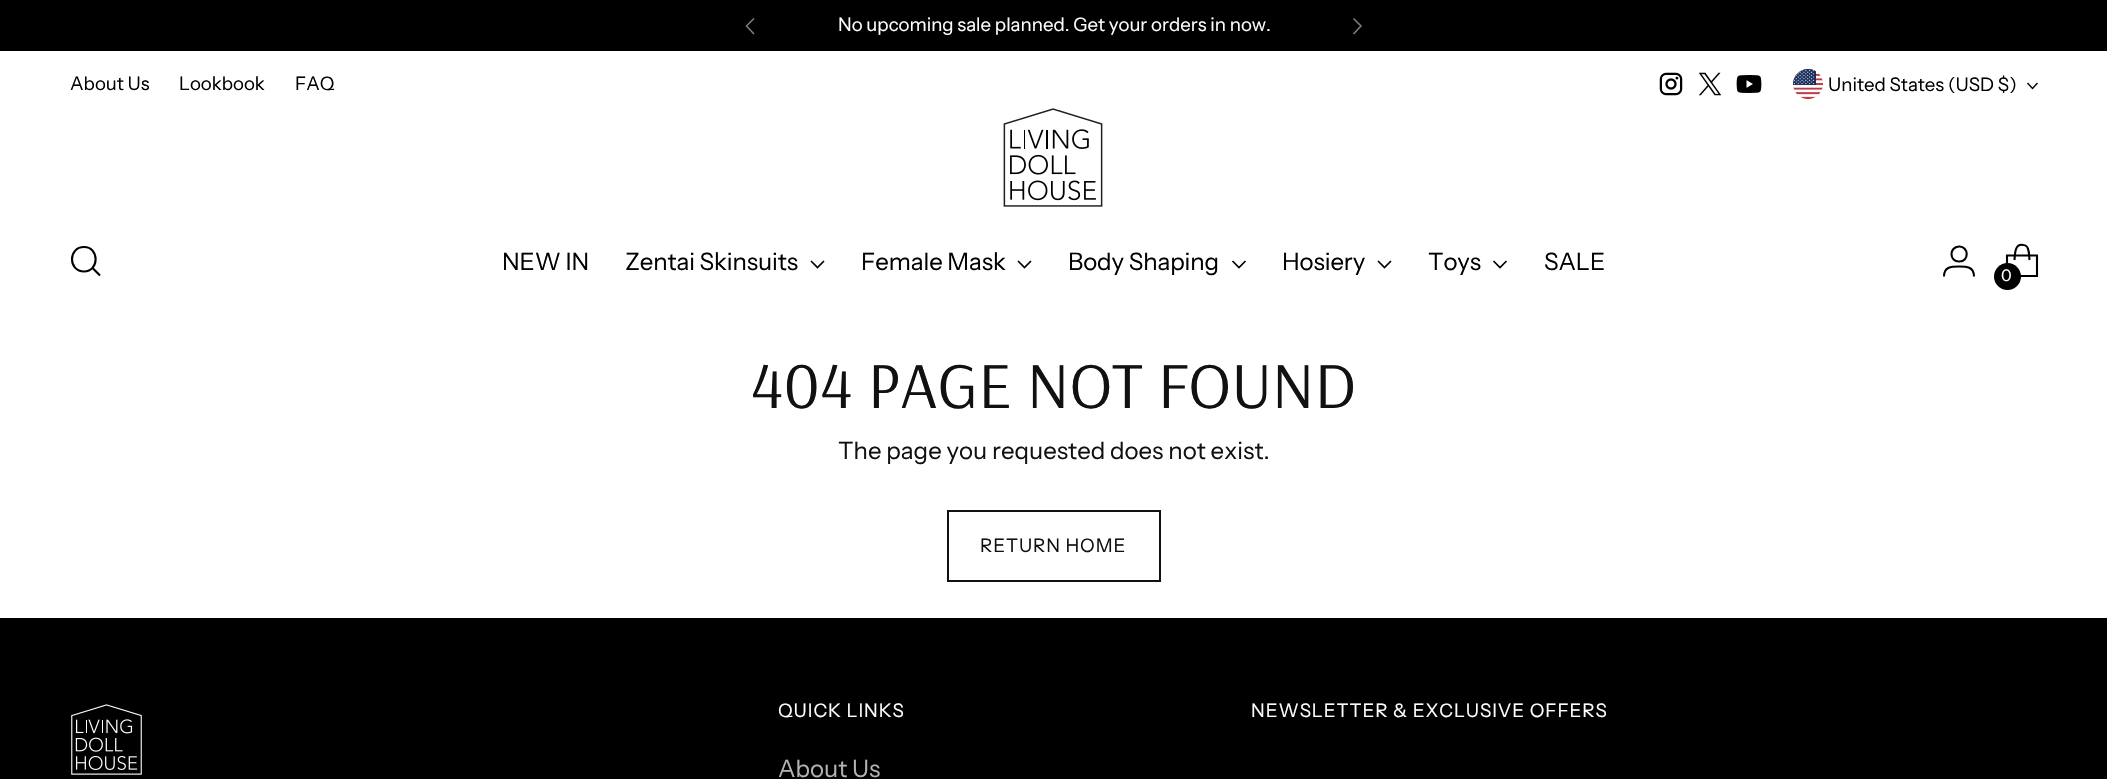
#include "include/core/SkBlurTypes.h"
#include "include/core/SkCanvas.h"
#include "include/core/SkData.h"
#include "include/core/SkFont.h"
#include "include/core/SkFontMgr.h"
#include "include/core/SkImage.h"
#include "include/core/SkMaskFilter.h"
#include "include/core/SkPaint.h"
#include "include/core/SkPathBuilder.h"
#include "include/core/SkTextBlob.h"
#include "include/effects/SkDashPathEffect.h"
#include "include/effects/SkGradientShader.h"
#include "include/utils/SkParsePath.h"

extern sk_sp<SkFontMgr> fontMgr;

static SkFont font(const char* family, int weight, float size, bool italic = false) {
    SkFontStyle style(weight, SkFontStyle::kNormal_Width,
        italic ? SkFontStyle::kItalic_Slant : SkFontStyle::kUpright_Slant);
    SkFont result(fontMgr->matchFamilyStyle(family, style), size);
    result.setSubpixel(true);
    return result;
}

static void drawLabel(SkCanvas* canvas, const char* s, float x, float y, const SkFont& font, SkColor color) {
    SkPaint ink(SkColor4f::FromColor(color));
    ink.setAntiAlias(true);
    canvas->drawString(s, x, y, font, ink);
}

static void drawTracked(SkCanvas* canvas, const char* s, float x, float y, const SkFont& font, const SkPaint& ink, float letter, float word) {
    std::vector<SkGlyphID> glyphs(font.countText(s, strlen(s), SkTextEncoding::kUTF8));
    std::vector<float> xs(glyphs.size());
    font.textToGlyphs(s, strlen(s), SkTextEncoding::kUTF8, glyphs);
    font.getXPos(glyphs, xs, x);
    float extra = 0;
    for (size_t i = 0; i < glyphs.size(); i++) {
        xs[i] += extra;
        extra += letter + word * (glyphs[i] == font.unicharToGlyph(' '));
    }
    canvas->drawTextBlob(SkTextBlob::MakeFromPosHGlyphs(glyphs, xs, y, font), 0, 0, ink);
}

static void fillRect(SkCanvas* canvas, float x, float y, float w, float h, SkColor color) {
    SkPaint ink(SkColor4f::FromColor(color));
    ink.setAntiAlias(true);
    canvas->drawRect(SkRect::MakeXYWH(x, y, w, h), ink);
}

static void drawPhoto(SkCanvas* canvas, const char* path, float x, float y, float w, float h) {
    auto image = SkImages::DeferredFromEncodedData(SkData::MakeFromFileName(path));
    canvas->drawImageRect(image, SkRect::MakeXYWH(x, y, w, h), SkSamplingOptions());
}

static SkPath parsePath(const char* data, bool evenOdd = false) {
    SkPath result = *SkParsePath::FromSVGString(data);
    if (evenOdd) result.setFillType(SkPathFillType::kEvenOdd);
    return result;
}

void draw(SkCanvas* canvas) {
    SkPaint paint;
    paint.setAntiAlias(true);
    canvas->clear(0xFFFFFFFF);
    fillRect(canvas, 0, 0, 2107, 51, 0xFF000000);
    SkFont font1 = font("Instrument Sans", 400, 18.65f);
    drawLabel(canvas, "No upcoming sale planned. Get your orders in now.", 838, 31, font1, 0xFFFFFFFF);
    paint.setStroke(true);
    paint.setStrokeWidth(1.5f);
    paint.setColor(0xFF808080);
    canvas->drawPath(parsePath("M754 18.5L746.5 26L754 34"), paint);
    canvas->drawPath(parsePath("M1353.5 34L1361 26L1353.5 18.5"), paint);
    drawLabel(canvas, "About Us", 70, 90, font1, 0xFF000000);
    drawLabel(canvas, "Lookbook", 179, 90, font1, 0xFF000000);
    drawLabel(canvas, "FAQ", 295, 90, font1, 0xFF000000);
    drawPhoto(canvas, "assets/img1.png", 1659, 72, 24, 24);
    drawPhoto(canvas, "assets/img2.png", 1698, 72, 24, 24);
    drawPhoto(canvas, "assets/img3.png", 1736, 75, 26, 18);
    drawPhoto(canvas, "assets/img4.png", 1793, 69, 30, 30);
    drawLabel(canvas, "United States (USD $)", 1828, 91, font1, 0xFF000000);
    paint.setStrokeWidth(1.4f);
    paint.setColor(0xFF000000);
    canvas->drawPath(parsePath("M2027.5 83L2032.5 88.5L2037.5 83"), paint);
    drawPhoto(canvas, "assets/img5.png", 1003, 108, 100, 99);
    paint.setStrokeWidth(2.1f);
    paint.setStrokeCap(SkPaint::kRound_Cap);
    canvas->drawPath(parsePath("M84 271.5C99.5 271.5 99.5 247 84 247C68 247 68 271.5 84 271.5Z"), paint);
    paint.setStrokeCap(SkPaint::kButt_Cap);
    canvas->drawPath(parsePath("M92.5 268L100 275.5"), paint);
    SkFont font2 = font("Instrument Sans", 400, 24);
    paint.setStroke(false);
    drawTracked(canvas, "NEW IN", 502, 270, font2, paint, -0.1f, 0);
    drawTracked(canvas, "Zentai Skinsuits", 625, 270, font2, paint, -0.1f, 0);
    paint.setStroke(true);
    paint.setStrokeWidth(1.7f);
    canvas->drawPath(parsePath("M811 261L817.5 267.5L824 261"), paint);
    paint.setStroke(false);
    drawTracked(canvas, "Female Mask", 861, 270, font2, paint, -0.1f, 0);
    paint.setStroke(true);
    canvas->drawPath(parsePath("M1018 261L1024.5 267.5L1031 261"), paint);
    paint.setStroke(false);
    drawTracked(canvas, "Body Shaping", 1068, 270, font2, paint, -0.1f, 0);
    paint.setStroke(true);
    canvas->drawPath(parsePath("M1232.5 261L1239 267.5L1245.5 261"), paint);
    paint.setStroke(false);
    drawTracked(canvas, "Hosiery", 1282, 270, font2, paint, -0.1f, 0);
    paint.setStroke(true);
    canvas->drawPath(parsePath("M1378 261L1384.5 267.5L1391 261"), paint);
    paint.setStroke(false);
    drawTracked(canvas, "Toys", 1428, 270, font2, paint, -0.1f, 0);
    paint.setStroke(true);
    canvas->drawPath(parsePath("M1493.5 261L1500 267.5L1506.5 261"), paint);
    paint.setStroke(false);
    drawTracked(canvas, "SALE", 1544, 270, font2, paint, -0.1f, 0);
    paint.setStroke(true);
    paint.setStrokeWidth(2.1f);
    canvas->drawPath(parsePath("M1959 261.5C1969.5 262 1969 246 1959 246.5C1949 247 1949 261.5 1959 261.5ZM1944 276.5C1944 266.5 1951.5 266.5 1959 266.5C1966.5 266.5 1974 266.5 1974 276.5"), paint);
    paint.setStrokeJoin(SkPaint::kBevel_Join);
    canvas->drawPath(parsePath("M2029.5 260C2029 256.5 2029.5 252.5 2028 249C2027.5 247 2025.5 245 2023.5 245C2014.5 243 2015 254.5 2014.5 260"), paint);
    paint.setStrokeJoin(SkPaint::kMiter_Join);
    canvas->drawPath(parsePath("M2037 276V255.5H2007V276Z"), paint);
    paint.setStroke(false);
    canvas->drawCircle(2007.5f, 276.5f, 13.5f, paint);
    SkFont font3 = font("Instrument Sans", 400, 16);
    drawLabel(canvas, "0", 2001, 281, font3, 0xFFFFFFFF);
    SkFont font4 = font("Arsenal", 400, 65.6f);
    drawLabel(canvas, "404 PAGE NOT FOUND", 751, 408, font4, 0xFF111111);
    drawLabel(canvas, "The page you requested does not exist.", 838, 459, font2, 0xFF111111);
    paint.setStroke(true);
    paint.setStrokeWidth(2);
    paint.setColor(0xFF111111);
    canvas->drawRect(SkRect::MakeXYWH(948, 511, 212, 70), paint);
    paint.setStroke(false);
    drawTracked(canvas, "RETURN HOME", 980, 552, font1, paint, 0.9f, 0);
    fillRect(canvas, 0, 618, 2107, 161, 0xFF000000);
    drawPhoto(canvas, "assets/img6.png", 71, 704, 71, 71);
    paint.setColor(0xFFFFFFFF);
    drawTracked(canvas, "QUICK LINKS", 778, 717, font1, paint, 0.9f, 0);
    drawLabel(canvas, "About Us", 778, 777, font2, 0xFFB3B3B3);
    drawTracked(canvas, "NEWSLETTER & EXCLUSIVE OFFERS", 1251, 717, font1, paint, 0.9f, 0);
}
